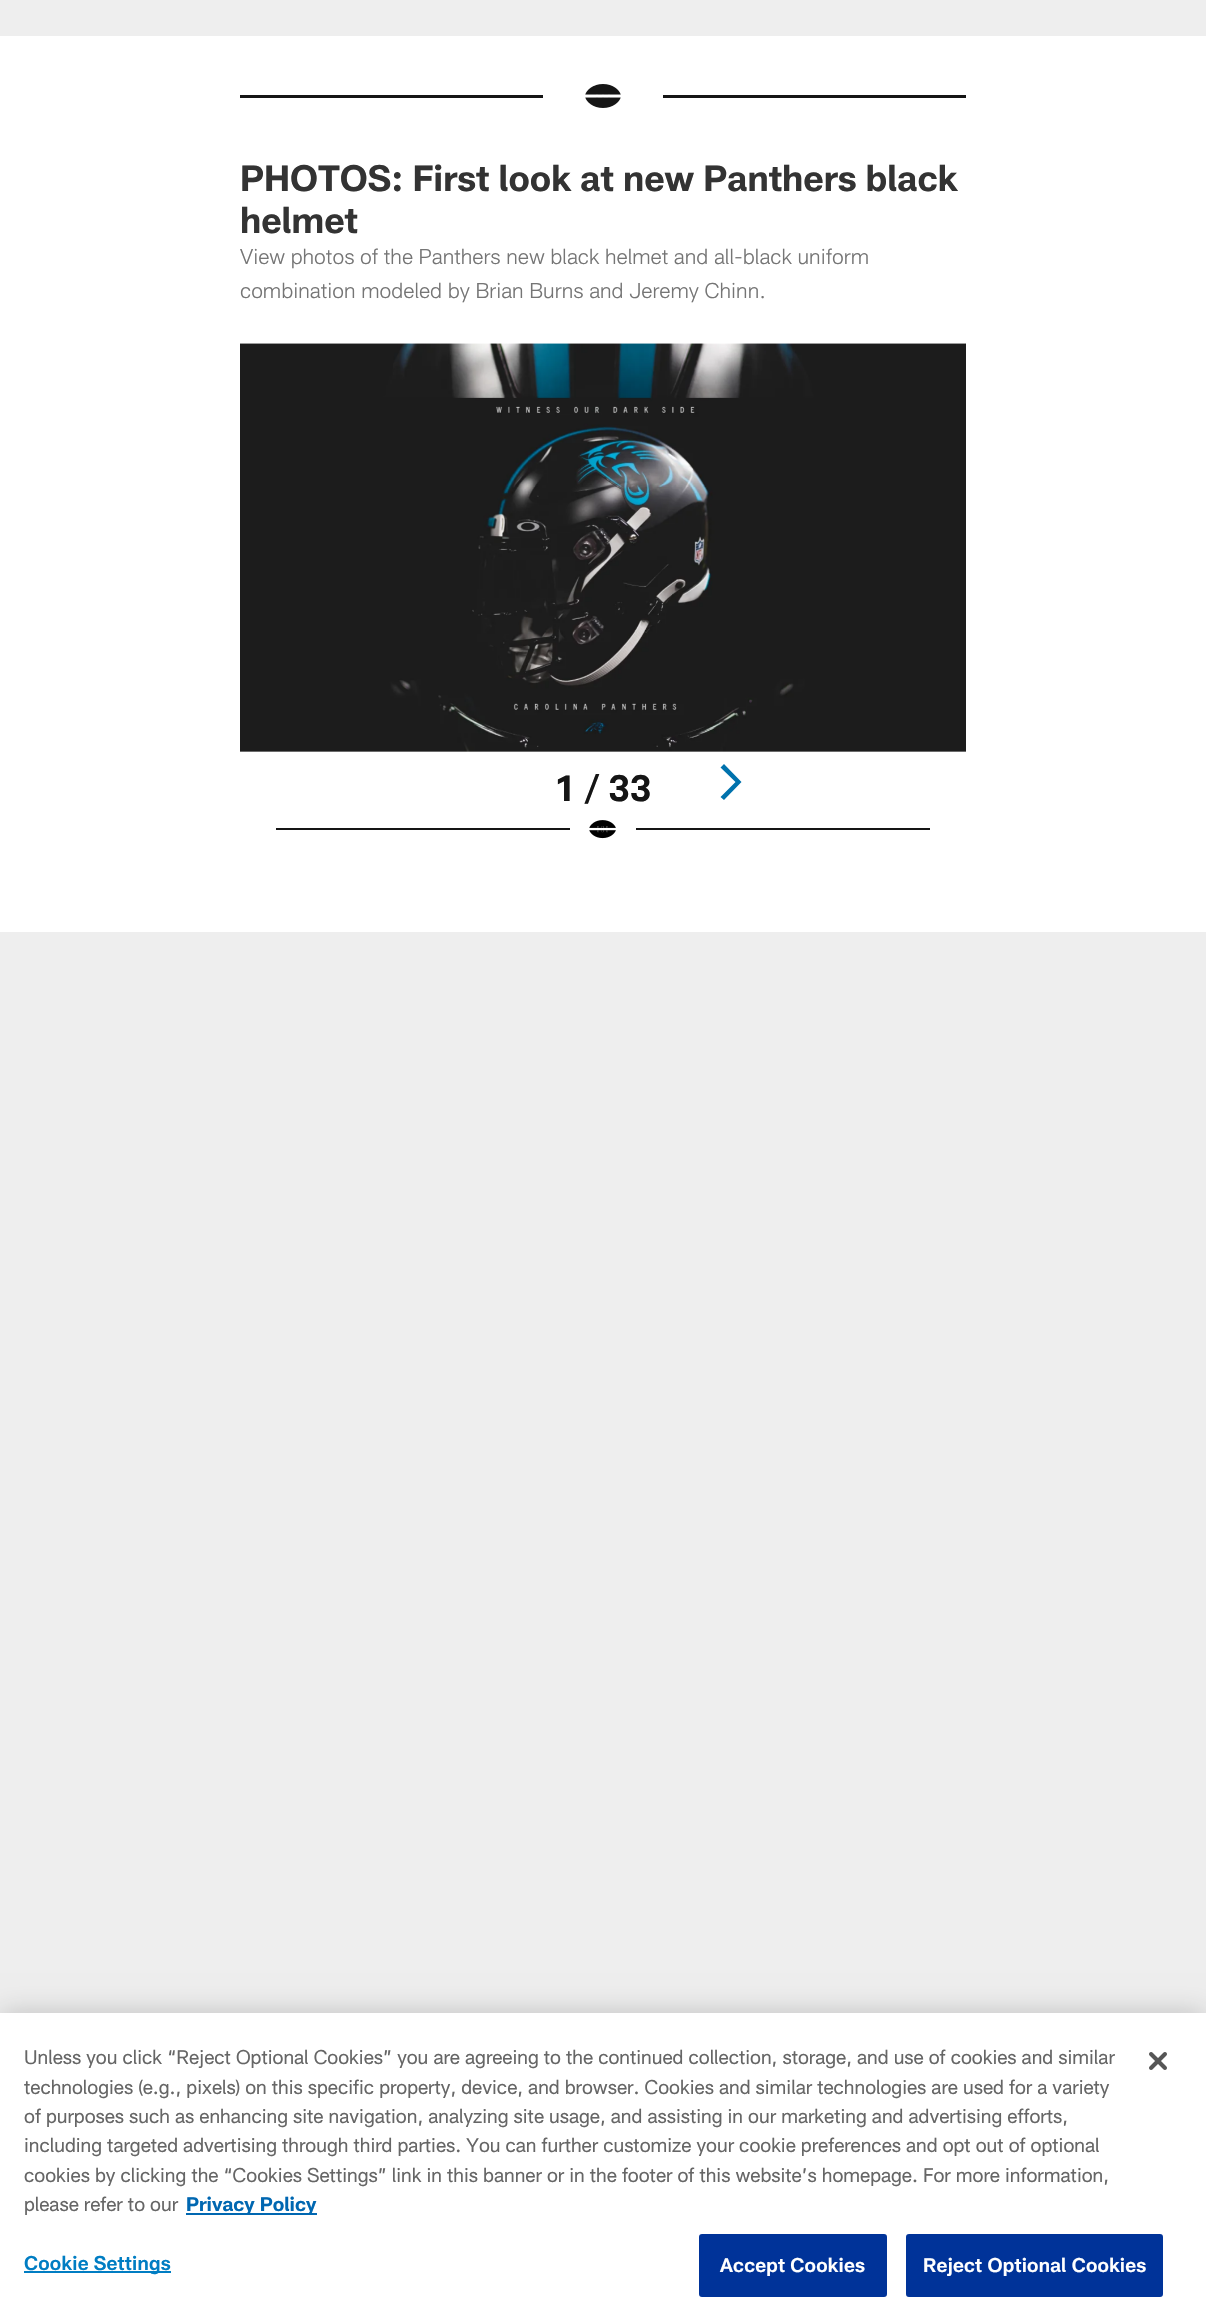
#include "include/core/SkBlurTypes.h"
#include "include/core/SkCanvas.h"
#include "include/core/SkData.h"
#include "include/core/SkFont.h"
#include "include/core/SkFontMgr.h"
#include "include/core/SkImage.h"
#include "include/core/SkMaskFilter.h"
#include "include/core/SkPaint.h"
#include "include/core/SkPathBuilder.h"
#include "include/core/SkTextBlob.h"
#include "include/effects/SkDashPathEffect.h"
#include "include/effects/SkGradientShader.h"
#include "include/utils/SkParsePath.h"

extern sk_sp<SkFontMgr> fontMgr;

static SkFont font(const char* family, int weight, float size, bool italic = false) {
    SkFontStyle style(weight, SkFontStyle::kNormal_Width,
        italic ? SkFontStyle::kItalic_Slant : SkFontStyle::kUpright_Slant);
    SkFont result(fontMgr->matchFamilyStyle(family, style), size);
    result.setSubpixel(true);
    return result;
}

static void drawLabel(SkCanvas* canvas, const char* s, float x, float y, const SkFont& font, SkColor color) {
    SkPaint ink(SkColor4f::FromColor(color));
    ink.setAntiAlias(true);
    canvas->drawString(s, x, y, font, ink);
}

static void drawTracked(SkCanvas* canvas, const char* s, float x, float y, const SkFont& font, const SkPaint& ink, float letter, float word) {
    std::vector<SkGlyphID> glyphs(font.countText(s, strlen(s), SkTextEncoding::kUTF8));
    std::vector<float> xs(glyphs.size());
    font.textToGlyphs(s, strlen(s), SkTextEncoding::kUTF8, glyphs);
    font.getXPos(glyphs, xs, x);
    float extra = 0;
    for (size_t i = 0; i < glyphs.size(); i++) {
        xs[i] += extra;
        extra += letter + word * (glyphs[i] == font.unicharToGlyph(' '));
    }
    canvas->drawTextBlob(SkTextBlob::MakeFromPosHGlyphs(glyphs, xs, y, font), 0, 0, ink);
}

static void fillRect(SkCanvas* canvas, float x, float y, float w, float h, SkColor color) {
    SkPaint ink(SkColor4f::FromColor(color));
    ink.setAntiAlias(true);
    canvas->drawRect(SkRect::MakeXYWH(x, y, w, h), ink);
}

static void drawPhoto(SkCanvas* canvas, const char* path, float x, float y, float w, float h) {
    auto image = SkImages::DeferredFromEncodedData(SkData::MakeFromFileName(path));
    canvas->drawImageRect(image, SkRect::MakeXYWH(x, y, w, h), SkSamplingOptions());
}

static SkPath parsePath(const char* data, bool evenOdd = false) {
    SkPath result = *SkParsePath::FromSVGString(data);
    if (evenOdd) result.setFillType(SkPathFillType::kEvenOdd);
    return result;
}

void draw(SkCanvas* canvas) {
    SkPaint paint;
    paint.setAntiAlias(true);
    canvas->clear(0xFFEEEEEE);
    fillRect(canvas, 0, 36, 1206, 896, 0xFFFFFFFF);
    fillRect(canvas, 240, 95, 303, 3, 0xFF151515);
    drawPhoto(canvas, "assets/img1.png", 585, 84, 36, 24);
    fillRect(canvas, 663, 95, 303, 3, 0xFF151515);
    SkFont font1 = font("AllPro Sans", 700, 36);
    drawLabel(canvas, "PHOTOS: First look at new Panthers black", 240, 191, font1, 0xFF333333);
    drawLabel(canvas, "helmet", 240, 233, font1, 0xFF333333);
    SkFont font2 = font("AllPro Sans", 300, 21);
    drawLabel(canvas, "View photos of the Panthers new black helmet and all-black uniform", 240, 264, font2, 0xFF757575);
    drawLabel(canvas, "combination modeled by Brian Burns and Jeremy Chinn.", 240, 298, font2, 0xFF757575);
    drawPhoto(canvas, "assets/img2.png", 240, 343, 726, 409);
    fillRect(canvas, 965, 343, 1, 1, 0xFF969696);
    drawLabel(canvas, "1 / 33", 554, 801, font1, 0xFF151515);
    fillRect(canvas, 276, 828, 294, 2, 0xFF151515);
    drawPhoto(canvas, "assets/img3.png", 589, 820, 27, 19);
    fillRect(canvas, 636, 828, 294, 2, 0xFF151515);
    paint.setColor(0xFF0072AD);
    canvas->drawPath(parsePath("M735.5 782L720.5 767.5L724 764L741.5 782L724 800L720.5 797L722 795.5Z"), paint);
    paint.setColor(0x33000000);
    paint.setMaskFilter(SkMaskFilter::MakeBlur(kNormal_SkBlurStyle, 13.5f));
    canvas->drawRect(SkRect::MakeXYWH(0, 2013, 1206, 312), paint);
    paint.setMaskFilter(nullptr);
    fillRect(canvas, 0, 2013, 1206, 311, 0xFFFFFFFF);
    SkFont font3 = font("AllPro Sans", 400, 19.5f);
    drawLabel(canvas, "Unless you click “Reject Optional Cookies” you are agreeing to the continued collection, storage, and use of cookies and similar", 24, 2064, font3, 0xFF666666);
    drawLabel(canvas, "technologies (e.g., pixels) on this specific property, device, and browser. Cookies and similar technologies are used for a variety", 24, 2094, font3, 0xFF666666);
    drawLabel(canvas, "of purposes such as enhancing site navigation, analyzing site usage, and assisting in our marketing and advertising efforts,", 24, 2123, font3, 0xFF666666);
    drawLabel(canvas, "including targeted advertising through third parties. You can further customize your cookie preferences and opt out of optional", 24, 2152, font3, 0xFF666666);
    drawLabel(canvas, "cookies by clicking the “Cookies Settings” link in this banner or in the footer of this website’s homepage. For more information,", 24, 2182, font3, 0xFF666666);
    drawLabel(canvas, "please refer to our", 24, 2211, font3, 0xFF666666);
    fillRect(canvas, 186, 2213, 131, 2, 0xFF0067B1);
    SkFont font4 = font("AllPro Sans", 700, 19.5f);
    drawLabel(canvas, "Privacy Policy", 186, 2211, font4, 0xFF0067B1);
    fillRect(canvas, 24, 2271, 147, 2, 0xFF007DC3);
    SkFont font5 = font("AllPro Sans", 600, 19.5f);
    paint.setColor(0xFF007DC3);
    drawTracked(canvas, "Cookie Settings", 24, 2270, font5, paint, 0.2f, 0);
    paint.setColor(0xFF003399);
    canvas->drawRoundRect(SkRect::MakeXYWH(700, 2235, 186, 61), 2, 2, paint);
    paint.setStroke(true);
    paint.setStrokeWidth(2);
    canvas->drawRoundRect(SkRect::MakeXYWH(700, 2235, 186, 61), 2, 2, paint);
    paint.setStroke(false);
    paint.setColor(0xFFFFFFFF);
    drawTracked(canvas, "Accept Cookies", 720, 2272, font5, paint, 0.2f, 0);
    paint.setColor(0xFF003399);
    canvas->drawRoundRect(SkRect::MakeXYWH(907, 2235, 255, 61), 2, 2, paint);
    paint.setStroke(true);
    canvas->drawRoundRect(SkRect::MakeXYWH(907, 2235, 255, 61), 2, 2, paint);
    paint.setStroke(false);
    paint.setColor(0xFFFFFFFF);
    drawTracked(canvas, "Reject Optional Cookies", 923, 2272, font5, paint, 0.2f, 0);
    drawPhoto(canvas, "assets/img4.png", 1149, 2052, 18, 18);
}
